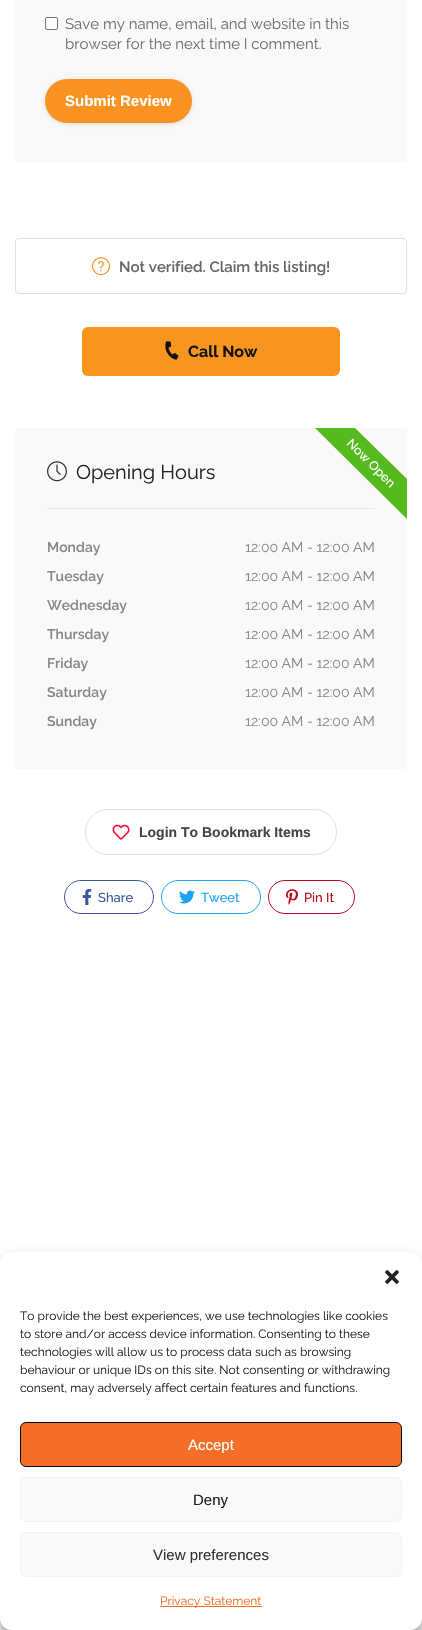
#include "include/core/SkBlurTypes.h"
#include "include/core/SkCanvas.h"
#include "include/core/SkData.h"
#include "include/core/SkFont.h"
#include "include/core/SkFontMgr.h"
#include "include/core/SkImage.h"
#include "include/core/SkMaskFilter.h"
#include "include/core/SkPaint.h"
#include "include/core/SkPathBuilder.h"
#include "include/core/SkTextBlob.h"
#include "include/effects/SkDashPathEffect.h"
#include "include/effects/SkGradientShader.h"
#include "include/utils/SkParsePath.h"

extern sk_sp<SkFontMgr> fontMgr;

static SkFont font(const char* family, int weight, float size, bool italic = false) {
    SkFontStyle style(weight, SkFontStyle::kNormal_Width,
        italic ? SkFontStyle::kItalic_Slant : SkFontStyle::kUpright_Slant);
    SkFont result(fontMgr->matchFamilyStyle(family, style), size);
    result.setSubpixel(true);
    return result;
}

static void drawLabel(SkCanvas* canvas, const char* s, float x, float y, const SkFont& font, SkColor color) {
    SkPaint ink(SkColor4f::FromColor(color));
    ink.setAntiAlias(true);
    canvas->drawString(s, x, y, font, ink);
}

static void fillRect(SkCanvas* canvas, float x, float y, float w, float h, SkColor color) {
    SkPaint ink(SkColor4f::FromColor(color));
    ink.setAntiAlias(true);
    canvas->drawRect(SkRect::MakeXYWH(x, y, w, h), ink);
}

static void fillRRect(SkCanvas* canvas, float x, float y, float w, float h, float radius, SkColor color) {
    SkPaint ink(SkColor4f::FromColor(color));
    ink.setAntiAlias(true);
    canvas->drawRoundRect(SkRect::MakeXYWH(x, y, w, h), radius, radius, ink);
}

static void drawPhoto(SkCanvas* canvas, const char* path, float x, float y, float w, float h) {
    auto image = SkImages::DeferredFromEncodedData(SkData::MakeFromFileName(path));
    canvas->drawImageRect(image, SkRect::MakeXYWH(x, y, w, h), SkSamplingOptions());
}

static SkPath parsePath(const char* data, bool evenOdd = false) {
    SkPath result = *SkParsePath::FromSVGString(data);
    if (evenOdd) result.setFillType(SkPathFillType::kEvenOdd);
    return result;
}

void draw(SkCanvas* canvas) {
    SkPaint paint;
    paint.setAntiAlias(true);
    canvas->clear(0xFFFFFFFF);
    fillRRect(canvas, 15, -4, 392, 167, 4, 0xFFF9F9F9);
    paint.setColor(0xFFFFFFFF);
    canvas->drawRoundRect(SkRect::MakeXYWH(45.5f, 17.5f, 12, 12), 1.5f, 1.5f, paint);
    paint.setStroke(true);
    paint.setStrokeWidth(1);
    paint.setColor(0xFF767676);
    canvas->drawRoundRect(SkRect::MakeXYWH(45.5f, 17.5f, 12, 12), 1.5f, 1.5f, paint);
    SkFont font1 = font("Raleway", 100, 15);
    drawLabel(canvas, "Save my name, email, and website in this", 65, 29, font1, 0xFF707070);
    drawLabel(canvas, "browser for the next time I comment.", 65, 49, font1, 0xFF707070);
    paint.setStroke(false);
    paint.setColor(0x1F000000);
    paint.setMaskFilter(SkMaskFilter::MakeBlur(kNormal_SkBlurStyle, 2));
    canvas->drawRoundRect(SkRect::MakeXYWH(45, 80, 147, 44), 22, 22, paint);
    paint.setMaskFilter(nullptr);
    fillRRect(canvas, 45, 79, 147, 44, 22, 0xFFFA9222);
    SkFont font2 = font("Liberation Sans", 700, 15);
    drawLabel(canvas, "Submit Review", 65, 106, font2, 0xFFFFFFFF);
    paint.setStroke(true);
    paint.setColor(0xFFE0E0E0);
    canvas->drawRoundRect(SkRect::MakeXYWH(15.5f, 238.5f, 391, 55), 3.5f, 3.5f, paint);
    drawPhoto(canvas, "assets/img1.png", 92, 257, 18, 19);
    SkFont font3 = font("Raleway", 600, 15);
    drawLabel(canvas, "Not verified. Claim this listing!", 119, 272, font3, 0xFF666666);
    fillRRect(canvas, 82, 327, 258, 49, 6, 0xFFF8951E);
    drawPhoto(canvas, "assets/img2.png", 165, 341, 14, 19);
    SkFont font4 = font("Raleway", 700, 16);
    drawLabel(canvas, "Call Now", 188, 357, font4, 0xFF111111);
    fillRRect(canvas, 15, 428, 392, 341, 3, 0xFFF9F9F9);
    fillRect(canvas, 47, 508, 328, 1, 0xFFE8E8E8);
    drawPhoto(canvas, "assets/img3.png", 47, 461, 20, 21);
    SkFont font5 = font("Raleway", 100, 20);
    drawLabel(canvas, "Opening Hours", 76, 479, font5, 0xFF222222);
    paint.setStroke(false);
    paint.setColor(0xFF54BA1D);
    canvas->drawPath(parsePath("M407 519L315 428H355L407 479Z"), paint);
    SkFont font6 = font("Raleway", 500, 12.5f);
    canvas->save();
    canvas->rotate(45, 346, 444);
    drawLabel(canvas, "Now Open", 346, 444, font6, 0xFFFFFFFF);
    canvas->restore();
    SkFont font7 = font("Raleway", 600, 14);
    drawLabel(canvas, "Monday", 47, 552, font7, 0xFF888888);
    SkFont font8 = font("Raleway", 100, 14);
    drawLabel(canvas, "12:00 AM - 12:00 AM", 245, 552, font8, 0xFF888888);
    drawLabel(canvas, "Tuesday", 47, 581, font7, 0xFF888888);
    drawLabel(canvas, "12:00 AM - 12:00 AM", 245, 581, font8, 0xFF888888);
    drawLabel(canvas, "Wednesday", 47, 610, font7, 0xFF888888);
    drawLabel(canvas, "12:00 AM - 12:00 AM", 245, 610, font8, 0xFF888888);
    drawLabel(canvas, "Thursday", 47, 639, font7, 0xFF888888);
    drawLabel(canvas, "12:00 AM - 12:00 AM", 245, 639, font8, 0xFF888888);
    drawLabel(canvas, "Friday", 47, 668, font7, 0xFF888888);
    drawLabel(canvas, "12:00 AM - 12:00 AM", 245, 668, font8, 0xFF888888);
    drawLabel(canvas, "Saturday", 47, 697, font7, 0xFF888888);
    drawLabel(canvas, "12:00 AM - 12:00 AM", 245, 697, font8, 0xFF888888);
    drawLabel(canvas, "Sunday", 47, 726, font7, 0xFF888888);
    drawLabel(canvas, "12:00 AM - 12:00 AM", 245, 726, font8, 0xFF888888);
    paint.setStroke(true);
    paint.setColor(0xFFE0E0E0);
    canvas->drawRoundRect(SkRect::MakeXYWH(85.5f, 809.5f, 251, 45), 22.5f, 22.5f, paint);
    drawPhoto(canvas, "assets/img4.png", 112, 824, 18, 16);
    SkFont font9 = font("Liberation Sans", 700, 14);
    drawLabel(canvas, "Login To Bookmark Items", 139, 837, font9, 0xFF444444);
    paint.setColor(0xFF3B5998);
    canvas->drawRoundRect(SkRect::MakeXYWH(64.5f, 880.5f, 89, 33), 16.5f, 16.5f, paint);
    drawPhoto(canvas, "assets/img5.png", 82, 889, 10, 16);
    SkFont font10 = font("Raleway", 500, 13);
    drawLabel(canvas, "Share", 98, 902, font10, 0xFF3B5998);
    paint.setColor(0xFF1DA1F2);
    canvas->drawRoundRect(SkRect::MakeXYWH(161.5f, 880.5f, 99, 33), 16.5f, 16.5f, paint);
    drawPhoto(canvas, "assets/img6.png", 179, 890, 16, 14);
    drawLabel(canvas, "Tweet", 201, 902, font10, 0xFF1DA1F2);
    paint.setColor(0xFFBD081C);
    canvas->drawRoundRect(SkRect::MakeXYWH(268.5f, 880.5f, 86, 33), 16.5f, 16.5f, paint);
    drawPhoto(canvas, "assets/img7.png", 286, 889, 12, 16);
    drawLabel(canvas, "Pin It", 304, 902, font10, 0xFFBD081C);
    paint.setStroke(false);
    paint.setColor(0x3B000000);
    paint.setMaskFilter(SkMaskFilter::MakeBlur(kNormal_SkBlurStyle, 3));
    canvas->drawRoundRect(SkRect::MakeXYWH(0, 1258, 422, 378), 12, 12, paint);
    paint.setMaskFilter(nullptr);
    paint.setColor(0x30000000);
    paint.setMaskFilter(SkMaskFilter::MakeBlur(kNormal_SkBlurStyle, 10));
    canvas->drawRoundRect(SkRect::MakeXYWH(0, 1262, 422, 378), 12, 12, paint);
    paint.setMaskFilter(nullptr);
    fillRRect(canvas, 0, 1252, 422, 378, 12, 0xFFFFFFFF);
    drawPhoto(canvas, "assets/img8.png", 385, 1270, 14, 14);
    SkFont font11 = font("Raleway", 100, 12);
    drawLabel(canvas, "To provide the best experiences, we use technologies like cookies", 20, 1320, font11, 0xFF222222);
    drawLabel(canvas, "to store and/or access device information. Consenting to these", 20, 1338, font11, 0xFF222222);
    drawLabel(canvas, "technologies will allow us to process data such as browsing", 20, 1356, font11, 0xFF222222);
    drawLabel(canvas, "behaviour or unique IDs on this site. Not consenting or withdrawing", 20, 1374, font11, 0xFF222222);
    drawLabel(canvas, "consent, may adversely affect certain features and functions.", 20, 1392, font11, 0xFF222222);
    paint.setColor(0xFFF56E28);
    canvas->drawRoundRect(SkRect::MakeXYWH(20.5f, 1422.5f, 381, 44), 5.5f, 5.5f, paint);
    paint.setStroke(true);
    paint.setColor(0xFF030B12);
    canvas->drawRoundRect(SkRect::MakeXYWH(20.5f, 1422.5f, 381, 44), 5.5f, 5.5f, paint);
    SkFont font12 = font("Liberation Sans", 400, 15);
    drawLabel(canvas, "Accept", 188, 1450, font12, 0xFFFFFFFF);
    paint.setStroke(false);
    paint.setColor(0xFFF9F9F9);
    canvas->drawRoundRect(SkRect::MakeXYWH(20.5f, 1477.5f, 381, 44), 5.5f, 5.5f, paint);
    paint.setStroke(true);
    paint.setColor(0xFFF2F2F2);
    canvas->drawRoundRect(SkRect::MakeXYWH(20.5f, 1477.5f, 381, 44), 5.5f, 5.5f, paint);
    drawLabel(canvas, "Deny", 193, 1505, font12, 0xFF222222);
    paint.setStroke(false);
    paint.setColor(0xFFF9F9F9);
    canvas->drawRoundRect(SkRect::MakeXYWH(20.5f, 1532.5f, 381, 44), 5.5f, 5.5f, paint);
    paint.setStroke(true);
    paint.setColor(0xFFF2F2F2);
    canvas->drawRoundRect(SkRect::MakeXYWH(20.5f, 1532.5f, 381, 44), 5.5f, 5.5f, paint);
    drawLabel(canvas, "View preferences", 153, 1560, font12, 0xFF333333);
    fillRect(canvas, 160, 1606, 102, 1, 0xFFF56E28);
    drawLabel(canvas, "Privacy Statement", 160, 1605, font11, 0xFFF56E28);
}
